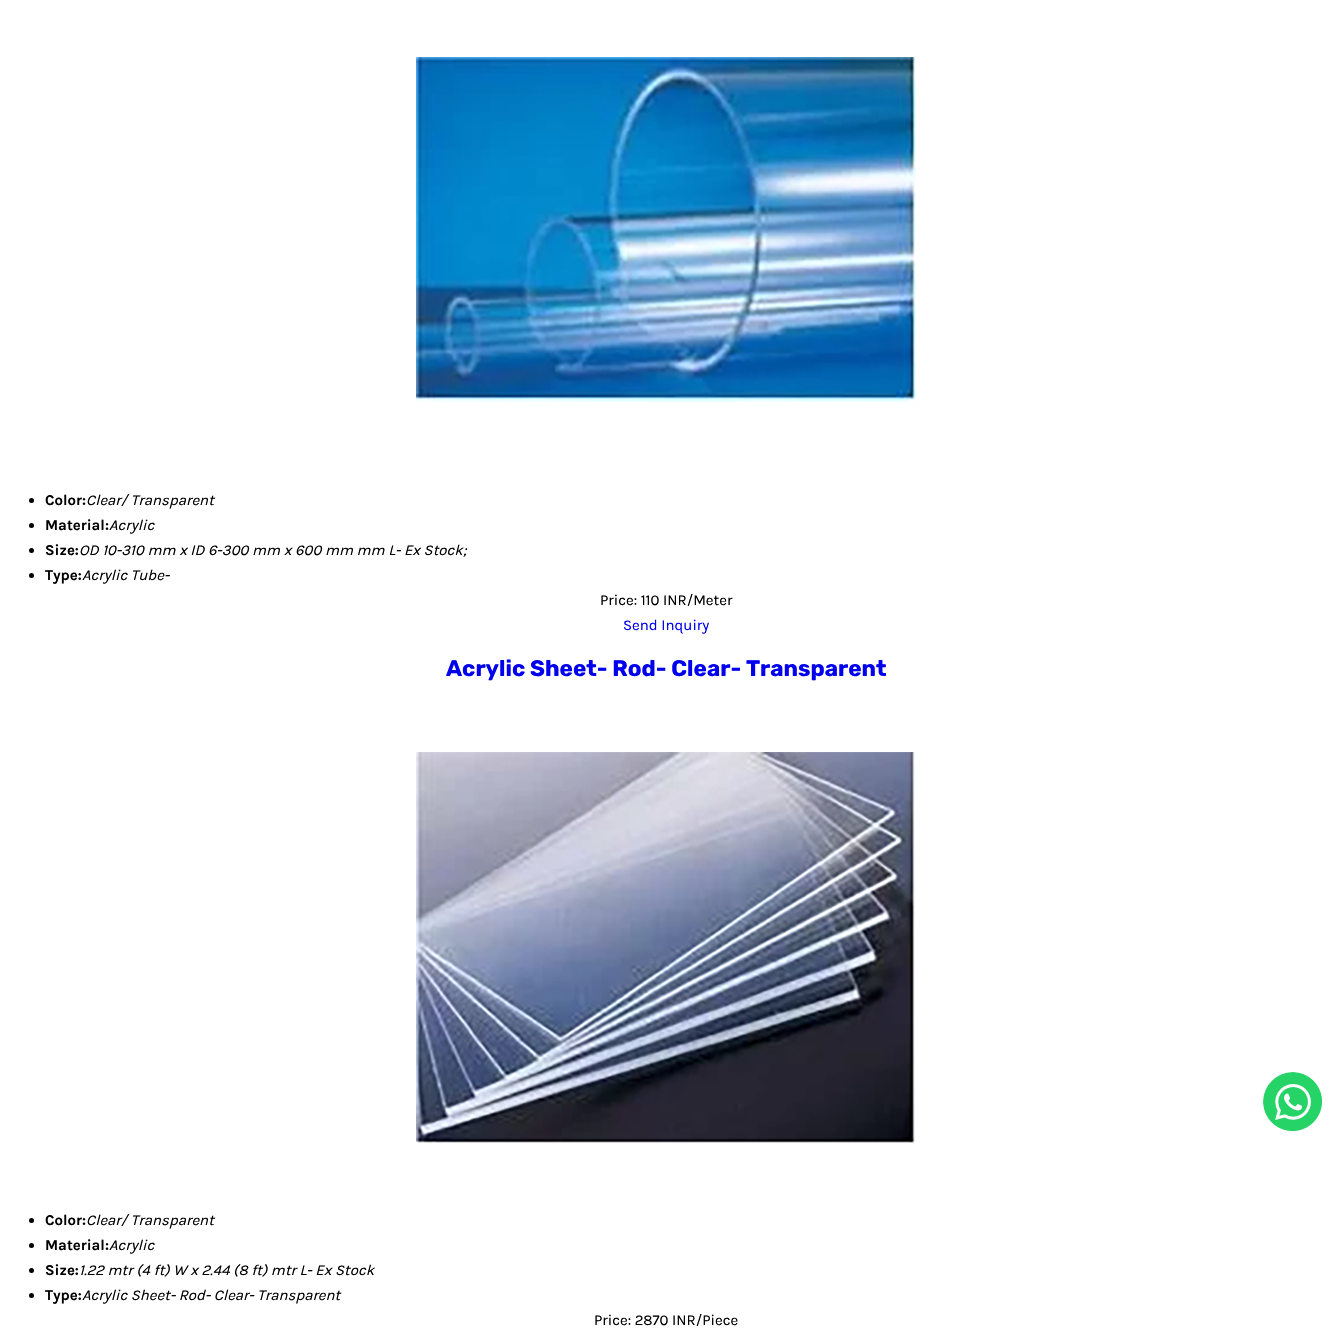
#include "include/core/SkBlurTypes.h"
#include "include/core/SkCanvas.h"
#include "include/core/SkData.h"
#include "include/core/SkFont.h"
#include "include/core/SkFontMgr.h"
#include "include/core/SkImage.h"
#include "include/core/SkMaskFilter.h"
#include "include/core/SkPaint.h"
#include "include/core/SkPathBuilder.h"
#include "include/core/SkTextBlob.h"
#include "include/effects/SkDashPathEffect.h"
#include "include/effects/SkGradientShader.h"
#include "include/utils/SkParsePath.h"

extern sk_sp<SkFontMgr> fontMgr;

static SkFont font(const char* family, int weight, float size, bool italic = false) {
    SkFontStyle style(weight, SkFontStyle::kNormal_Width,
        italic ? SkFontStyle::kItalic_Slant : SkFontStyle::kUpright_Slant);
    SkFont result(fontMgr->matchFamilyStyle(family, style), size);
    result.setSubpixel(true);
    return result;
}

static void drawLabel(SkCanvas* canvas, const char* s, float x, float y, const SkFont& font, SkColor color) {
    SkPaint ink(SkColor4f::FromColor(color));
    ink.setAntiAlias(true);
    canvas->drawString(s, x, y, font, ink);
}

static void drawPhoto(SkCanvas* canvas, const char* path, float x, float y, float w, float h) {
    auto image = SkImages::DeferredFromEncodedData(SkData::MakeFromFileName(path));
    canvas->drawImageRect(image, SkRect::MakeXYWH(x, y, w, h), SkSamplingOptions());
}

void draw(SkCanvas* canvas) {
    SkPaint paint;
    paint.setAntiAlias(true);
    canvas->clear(0xFFFFFFFF);
    drawPhoto(canvas, "assets/img1.png", 416, 57, 500, 345);
    paint.setColor(0xFF000000);
    canvas->drawCircle(31.5f, 500.5f, 2.5f, paint);
    SkFont font1 = font("Karla", 700, 15);
    drawLabel(canvas, "Color:", 45, 505, font1, 0xFF000000);
    SkFont font2 = font("Karla", 400, 15, true);
    drawLabel(canvas, "Clear/ Transparent", 86, 505, font2, 0xFF000000);
    canvas->drawCircle(31.5f, 525.5f, 2.5f, paint);
    drawLabel(canvas, "Material:", 45, 530, font1, 0xFF000000);
    drawLabel(canvas, "Acrylic", 109, 530, font2, 0xFF000000);
    canvas->drawCircle(31.5f, 550.5f, 2.5f, paint);
    drawLabel(canvas, "Size:", 45, 555, font1, 0xFF000000);
    drawLabel(canvas, "OD 10-310 mm x ID 6-300 mm x 600 mm mm L- Ex Stock;", 79, 555, font2, 0xFF000000);
    canvas->drawCircle(31.5f, 575.5f, 2.5f, paint);
    drawLabel(canvas, "Type:", 45, 580, font1, 0xFF000000);
    drawLabel(canvas, "Acrylic Tube-", 82, 580, font2, 0xFF000000);
    SkFont font3 = font("Karla", 400, 15);
    drawLabel(canvas, "Price: 110 INR/Meter", 600, 605, font3, 0xFF000000);
    drawLabel(canvas, "Send Inquiry", 623, 630, font3, 0xFF0000EE);
    SkFont font4 = font("Rubik", 700, 22.5f);
    drawLabel(canvas, "Acrylic Sheet- Rod- Clear- Transparent", 446, 676, font4, 0xFF0000EE);
    drawPhoto(canvas, "assets/img2.png", 416, 752, 499, 392);
    canvas->drawCircle(31.5f, 1220.5f, 2.5f, paint);
    drawLabel(canvas, "Color:", 45, 1225, font1, 0xFF000000);
    drawLabel(canvas, "Clear/ Transparent", 86, 1225, font2, 0xFF000000);
    canvas->drawCircle(31.5f, 1245.5f, 2.5f, paint);
    drawLabel(canvas, "Material:", 45, 1250, font1, 0xFF000000);
    drawLabel(canvas, "Acrylic", 109, 1250, font2, 0xFF000000);
    canvas->drawCircle(31.5f, 1270.5f, 2.5f, paint);
    drawLabel(canvas, "Size:", 45, 1275, font1, 0xFF000000);
    drawLabel(canvas, "1.22 mtr (4 ft) W x 2.44 (8 ft) mtr L- Ex Stock", 79, 1275, font2, 0xFF000000);
    canvas->drawCircle(31.5f, 1295.5f, 2.5f, paint);
    drawLabel(canvas, "Type:", 45, 1300, font1, 0xFF000000);
    drawLabel(canvas, "Acrylic Sheet- Rod- Clear- Transparent", 82, 1300, font2, 0xFF000000);
    drawLabel(canvas, "Price: 2870 INR/Piece", 594, 1325, font3, 0xFF000000);
    drawPhoto(canvas, "assets/img3.png", 1263, 1072, 59, 59);
}
